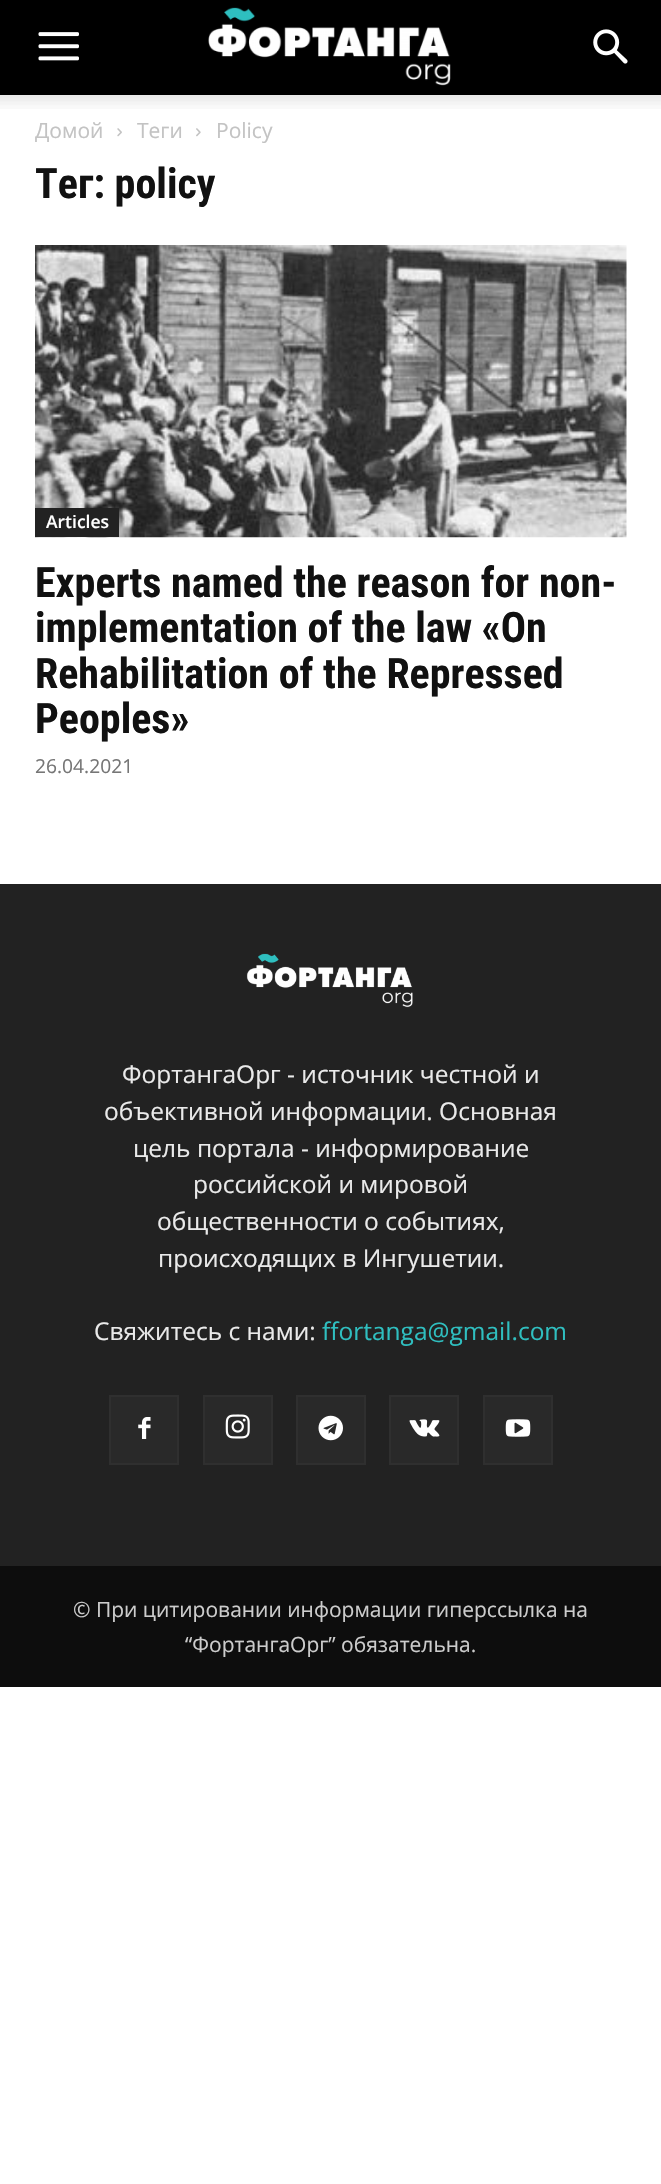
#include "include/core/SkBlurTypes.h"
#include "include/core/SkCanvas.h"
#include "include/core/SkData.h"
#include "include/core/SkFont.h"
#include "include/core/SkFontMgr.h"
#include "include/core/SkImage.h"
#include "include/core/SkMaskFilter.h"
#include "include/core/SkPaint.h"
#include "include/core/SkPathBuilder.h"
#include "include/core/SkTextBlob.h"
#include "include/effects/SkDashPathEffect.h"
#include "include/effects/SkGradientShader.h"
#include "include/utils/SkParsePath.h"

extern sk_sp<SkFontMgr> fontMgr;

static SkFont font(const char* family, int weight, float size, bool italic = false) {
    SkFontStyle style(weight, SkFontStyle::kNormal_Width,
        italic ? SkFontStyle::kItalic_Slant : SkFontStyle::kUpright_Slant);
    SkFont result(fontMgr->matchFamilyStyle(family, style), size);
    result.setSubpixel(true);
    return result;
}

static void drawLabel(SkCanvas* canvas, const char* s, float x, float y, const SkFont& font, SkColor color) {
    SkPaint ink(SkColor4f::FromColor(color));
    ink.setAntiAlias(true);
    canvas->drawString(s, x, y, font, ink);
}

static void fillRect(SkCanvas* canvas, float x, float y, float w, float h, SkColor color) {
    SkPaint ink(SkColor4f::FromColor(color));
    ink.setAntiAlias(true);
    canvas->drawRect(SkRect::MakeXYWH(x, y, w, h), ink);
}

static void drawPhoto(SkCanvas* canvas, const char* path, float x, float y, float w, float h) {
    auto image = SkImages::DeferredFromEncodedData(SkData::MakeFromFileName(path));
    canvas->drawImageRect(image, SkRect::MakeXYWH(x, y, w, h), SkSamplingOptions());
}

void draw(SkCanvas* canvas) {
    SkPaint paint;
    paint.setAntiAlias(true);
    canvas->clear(0xFFFFFFFF);
    fillRect(canvas, 0, 0, 661, 95, 0xFF000000);
    drawPhoto(canvas, "assets/img1.png", 38, 32, 41, 29);
    drawPhoto(canvas, "assets/img2.png", 208, 7, 243, 79);
    drawPhoto(canvas, "assets/img3.png", 593, 29, 35, 35);
    drawPhoto(canvas, "assets/img4.png", 0, 95, 661, 14);
    SkFont font1 = font("Open Sans", 400, 21);
    drawLabel(canvas, "Домой", 35, 138, font1, 0xFFC3C3C3);
    drawPhoto(canvas, "assets/img5.png", 117, 128, 5, 9);
    drawLabel(canvas, "Теги", 137, 138, font1, 0xFFC3C3C3);
    drawPhoto(canvas, "assets/img6.png", 196, 128, 5, 9);
    drawLabel(canvas, "Policy", 216, 138, font1, 0xFFC3C3C3);
    SkFont font2 = font("Roboto Condensed", 700, 42);
    drawLabel(canvas, "Тег: policy", 35, 198, font2, 0xFF111111);
    drawPhoto(canvas, "assets/img7.png", 35, 245, 592, 293);
    fillRect(canvas, 35, 508, 84, 29, 0xFF222222);
    SkFont font3 = font("Open Sans", 600, 17.5f);
    drawLabel(canvas, "Articles", 46, 528, font3, 0xFFFFFFFF);
    drawLabel(canvas, "Experts named the reason for non-", 35, 597, font2, 0xFF111111);
    drawLabel(canvas, "implementation of the law «On", 35, 642, font2, 0xFF111111);
    drawLabel(canvas, "Rehabilitation of the Repressed", 35, 688, font2, 0xFF111111);
    drawLabel(canvas, "Peoples»", 35, 733, font2, 0xFF111111);
    SkFont font4 = font("Open Sans", 400, 19.25f);
    drawLabel(canvas, "26.04.2021", 35, 773, font4, 0xFF767676);
    fillRect(canvas, 0, 884, 661, 682, 0xFF222222);
    drawPhoto(canvas, "assets/img8.png", 246, 953, 167, 55);
    SkFont font5 = font("Open Sans", 400, 24.5f);
    drawLabel(canvas, "ФортангаОрг - источник честной и", 122, 1083, font5, 0xFFEAEAEA);
    drawLabel(canvas, "объективной информации. Основная", 104, 1120, font5, 0xFFEAEAEA);
    drawLabel(canvas, "цель портала - информирование", 133, 1157, font5, 0xFFEAEAEA);
    drawLabel(canvas, "российской и мировой", 193, 1193, font5, 0xFFEAEAEA);
    drawLabel(canvas, "общественности о событиях,", 157, 1230, font5, 0xFFEAEAEA);
    drawLabel(canvas, "происходящих в Ингушетии.", 158, 1267, font5, 0xFFEAEAEA);
    drawLabel(canvas, "Свяжитесь с нами:", 94, 1340, font5, 0xFFEAEAEA);
    drawLabel(canvas, "ffortanga@gmail.com", 322, 1340, font5, 0xFF2FBFC0);
    fillRect(canvas, 111, 1397, 66, 66, 0xFF292929);
    drawPhoto(canvas, "assets/img9.png", 138, 1417, 13, 22);
    paint.setStroke(true);
    paint.setStrokeWidth(2);
    paint.setColor(0xFF2F2F2F);
    canvas->drawRect(SkRect::MakeXYWH(110, 1396, 68, 68), paint);
    fillRect(canvas, 205, 1397, 66, 66, 0xFF292929);
    drawPhoto(canvas, "assets/img10.png", 225, 1414, 25, 25);
    canvas->drawRect(SkRect::MakeXYWH(204, 1396, 68, 68), paint);
    fillRect(canvas, 298, 1397, 66, 66, 0xFF292929);
    drawPhoto(canvas, "assets/img11.png", 318, 1415, 25, 26);
    canvas->drawRect(SkRect::MakeXYWH(297, 1396, 68, 68), paint);
    fillRect(canvas, 391, 1397, 66, 66, 0xFF292929);
    drawPhoto(canvas, "assets/img12.png", 409, 1419, 31, 18);
    canvas->drawRect(SkRect::MakeXYWH(390, 1396, 68, 68), paint);
    fillRect(canvas, 485, 1397, 66, 66, 0xFF292929);
    drawPhoto(canvas, "assets/img13.png", 505, 1419, 26, 18);
    canvas->drawRect(SkRect::MakeXYWH(484, 1396, 68, 68), paint);
    fillRect(canvas, 0, 1566, 661, 121, 0xFF0D0D0D);
    drawLabel(canvas, "© При цитировании информации гиперссылка на", 73, 1617, font1, 0xFFCCCCCC);
    drawLabel(canvas, "“ФортангаОрг” обязательна.", 185, 1652, font1, 0xFFCCCCCC);
}
